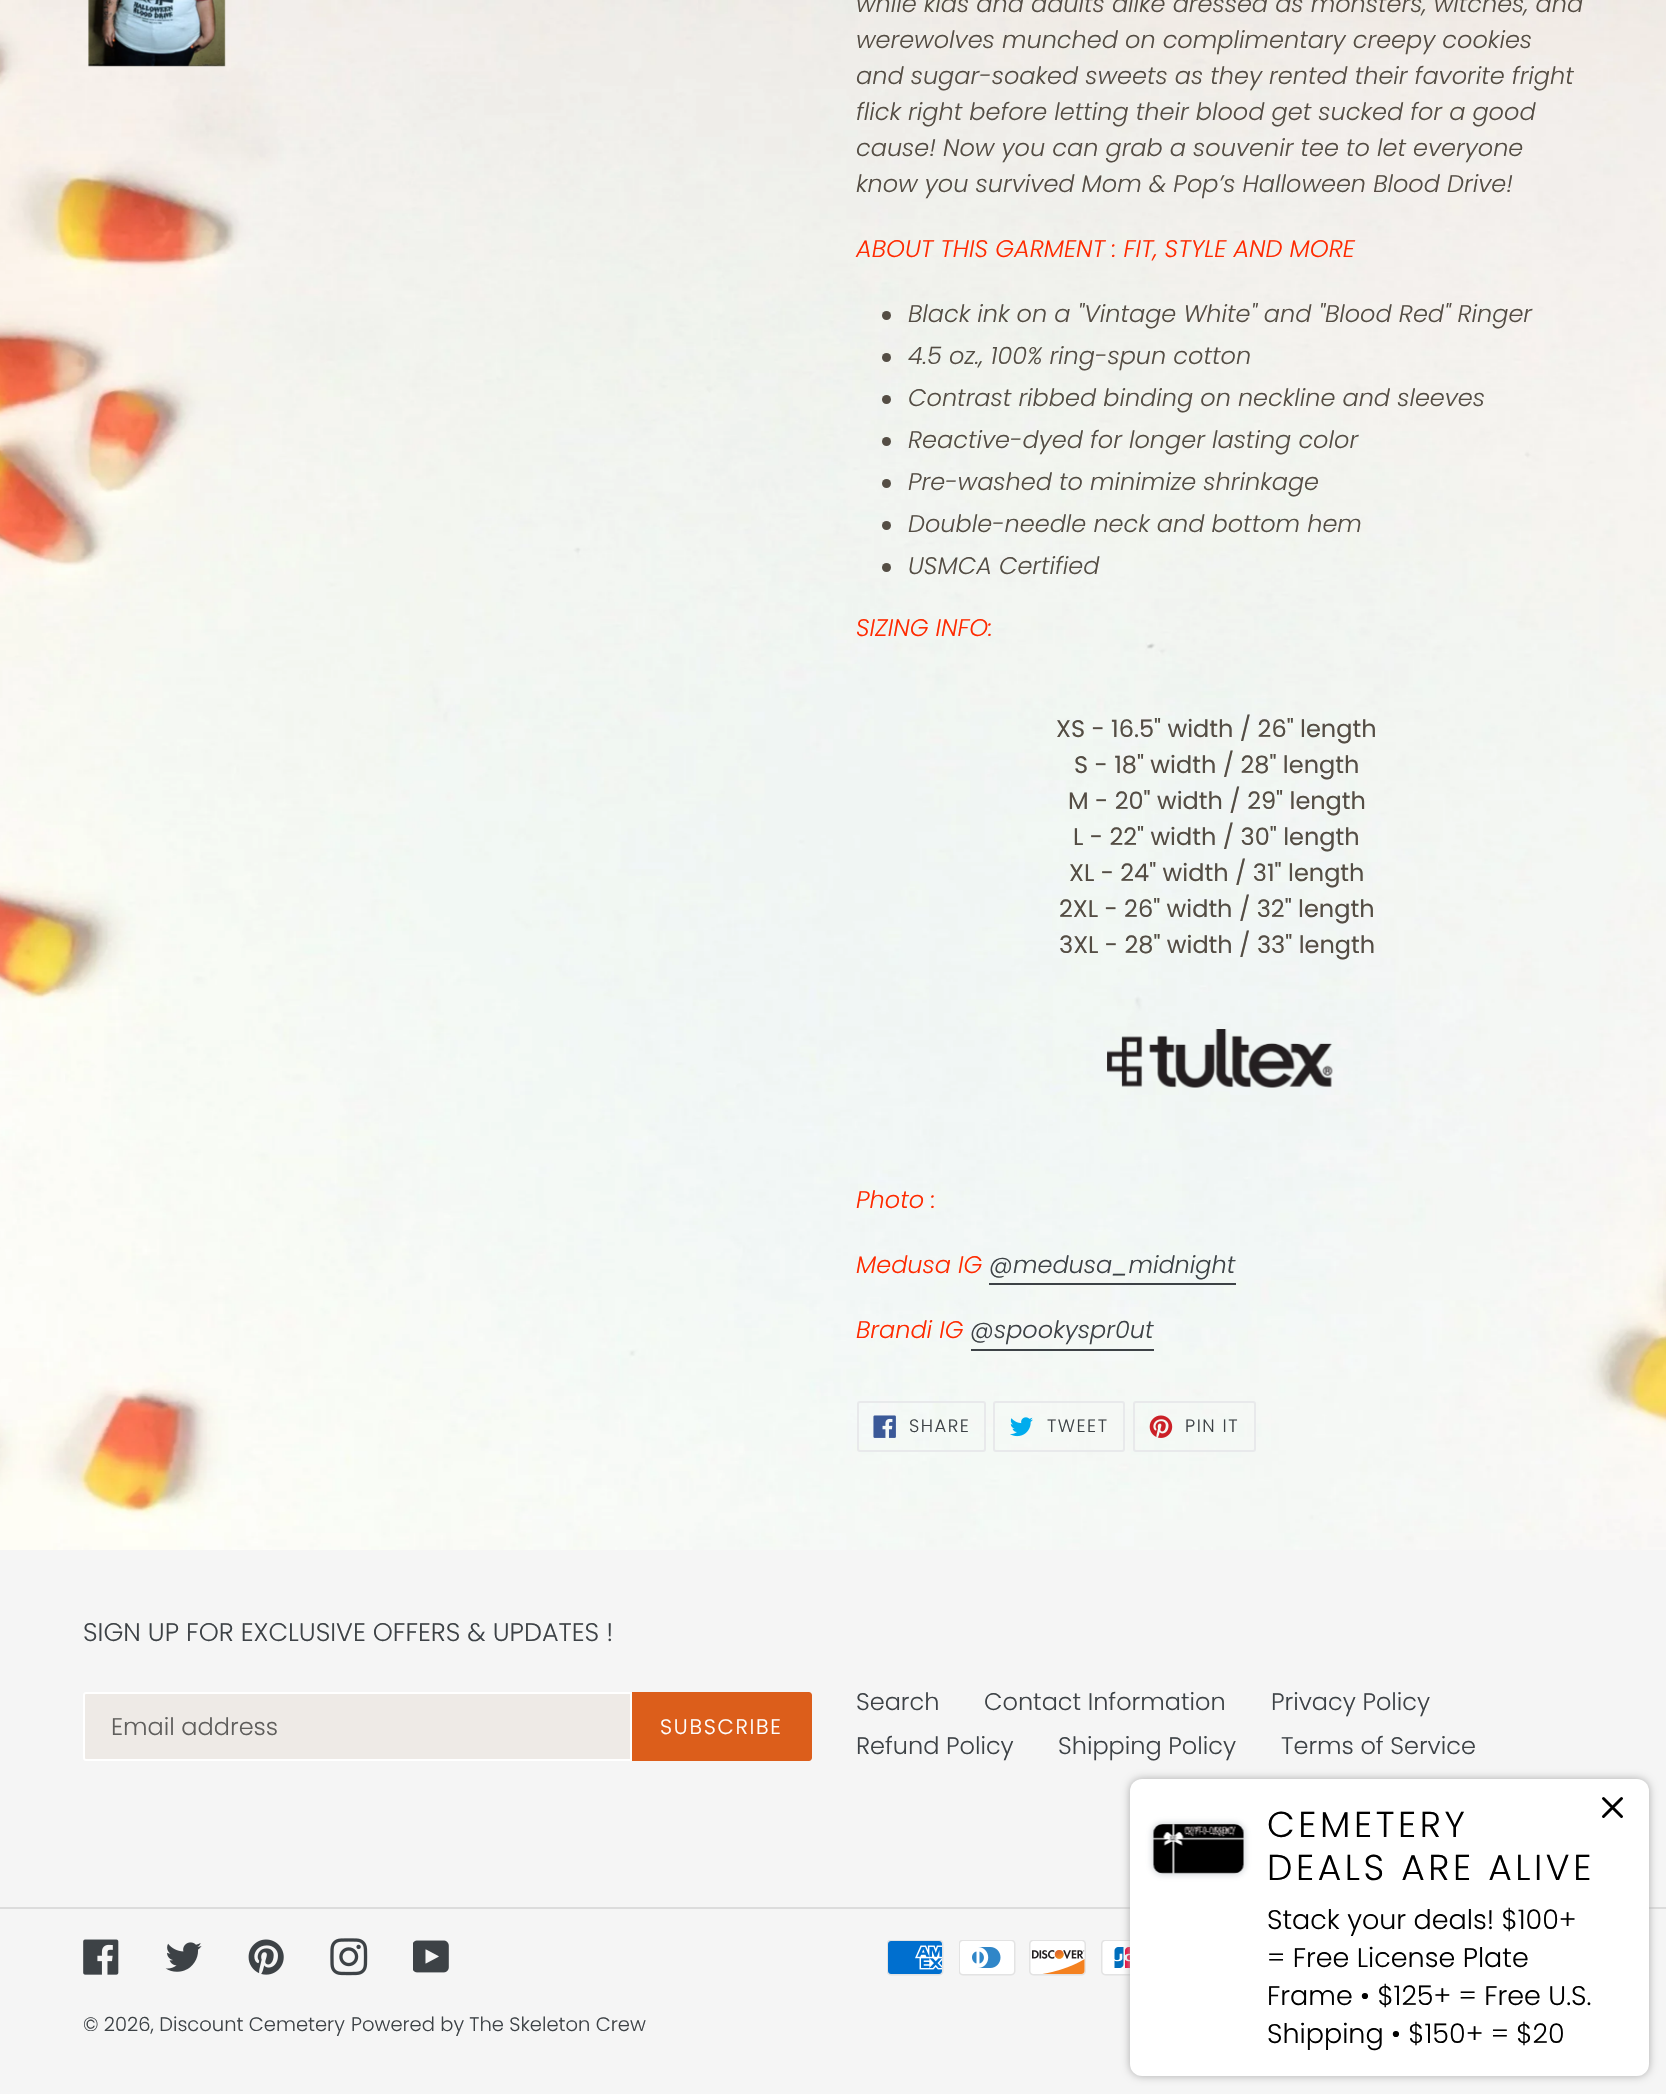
#include "include/core/SkBlurTypes.h"
#include "include/core/SkCanvas.h"
#include "include/core/SkData.h"
#include "include/core/SkFont.h"
#include "include/core/SkFontMgr.h"
#include "include/core/SkImage.h"
#include "include/core/SkMaskFilter.h"
#include "include/core/SkPaint.h"
#include "include/core/SkPathBuilder.h"
#include "include/core/SkTextBlob.h"
#include "include/effects/SkDashPathEffect.h"
#include "include/effects/SkGradientShader.h"
#include "include/utils/SkParsePath.h"

extern sk_sp<SkFontMgr> fontMgr;

static SkFont font(const char* family, int weight, float size, bool italic = false) {
    SkFontStyle style(weight, SkFontStyle::kNormal_Width,
        italic ? SkFontStyle::kItalic_Slant : SkFontStyle::kUpright_Slant);
    SkFont result(fontMgr->matchFamilyStyle(family, style), size);
    result.setSubpixel(true);
    return result;
}

static void drawLabel(SkCanvas* canvas, const char* s, float x, float y, const SkFont& font, SkColor color) {
    SkPaint ink(SkColor4f::FromColor(color));
    ink.setAntiAlias(true);
    canvas->drawString(s, x, y, font, ink);
}

static void drawTracked(SkCanvas* canvas, const char* s, float x, float y, const SkFont& font, const SkPaint& ink, float letter, float word) {
    std::vector<SkGlyphID> glyphs(font.countText(s, strlen(s), SkTextEncoding::kUTF8));
    std::vector<float> xs(glyphs.size());
    font.textToGlyphs(s, strlen(s), SkTextEncoding::kUTF8, glyphs);
    font.getXPos(glyphs, xs, x);
    float extra = 0;
    for (size_t i = 0; i < glyphs.size(); i++) {
        xs[i] += extra;
        extra += letter + word * (glyphs[i] == font.unicharToGlyph(' '));
    }
    canvas->drawTextBlob(SkTextBlob::MakeFromPosHGlyphs(glyphs, xs, y, font), 0, 0, ink);
}

static void fillRect(SkCanvas* canvas, float x, float y, float w, float h, SkColor color) {
    SkPaint ink(SkColor4f::FromColor(color));
    ink.setAntiAlias(true);
    canvas->drawRect(SkRect::MakeXYWH(x, y, w, h), ink);
}

static void fillRRect(SkCanvas* canvas, float x, float y, float w, float h, float radius, SkColor color) {
    SkPaint ink(SkColor4f::FromColor(color));
    ink.setAntiAlias(true);
    canvas->drawRoundRect(SkRect::MakeXYWH(x, y, w, h), radius, radius, ink);
}

static void drawPhoto(SkCanvas* canvas, const char* path, float x, float y, float w, float h) {
    auto image = SkImages::DeferredFromEncodedData(SkData::MakeFromFileName(path));
    canvas->drawImageRect(image, SkRect::MakeXYWH(x, y, w, h), SkSamplingOptions());
}

static SkPath parsePath(const char* data, bool evenOdd = false) {
    SkPath result = *SkParsePath::FromSVGString(data);
    if (evenOdd) result.setFillType(SkPathFillType::kEvenOdd);
    return result;
}

void draw(SkCanvas* canvas) {
    SkPaint paint;
    paint.setAntiAlias(true);
    canvas->clear(0xFFFFFFFF);
    drawPhoto(canvas, "assets/img1.png", 0, 0, 1666, 1550);
    drawPhoto(canvas, "assets/img2.png", 88, 0, 138, 67);
    SkFont font1 = font("Poppins", 300, 24, true);
    drawLabel(canvas, "while kids and adults alike dressed as monsters, witches, and", 856, 12, font1, 0xFF544D44);
    drawLabel(canvas, "werewolves munched on complimentary creepy cookies", 856, 48, font1, 0xFF544D44);
    drawLabel(canvas, "and sugar-soaked sweets as they rented their favorite fright", 856, 84, font1, 0xFF544D44);
    drawLabel(canvas, "flick right before letting their blood get sucked for a good", 856, 120, font1, 0xFF544D44);
    drawLabel(canvas, "cause! Now you can grab a souvenir tee to let everyone", 856, 156, font1, 0xFF544D44);
    drawLabel(canvas, "know you survived Mom & Pop’s Halloween Blood Drive!", 856, 192, font1, 0xFF544D44);
    drawLabel(canvas, "ABOUT THIS GARMENT : FIT, STYLE AND MORE", 856, 257, font1, 0xFFFF2A00);
    paint.setColor(0xFF544D44);
    canvas->drawCircle(886.5f, 315.5f, 4.5f, paint);
    drawLabel(canvas, "Black ink on a \"Vintage White\" and \"Blood Red\" Ringer", 908, 322, font1, 0xFF544D44);
    canvas->drawCircle(886.5f, 357.5f, 4.5f, paint);
    drawLabel(canvas, "4.5 oz., 100% ring-spun cotton", 908, 364, font1, 0xFF544D44);
    canvas->drawCircle(886.5f, 399.5f, 4.5f, paint);
    drawLabel(canvas, "Contrast ribbed binding on neckline and sleeves", 908, 406, font1, 0xFF544D44);
    canvas->drawCircle(886.5f, 441.5f, 4.5f, paint);
    drawLabel(canvas, "Reactive-dyed for longer lasting color", 908, 448, font1, 0xFF544D44);
    canvas->drawCircle(886.5f, 483.5f, 4.5f, paint);
    drawLabel(canvas, "Pre-washed to minimize shrinkage", 908, 490, font1, 0xFF544D44);
    canvas->drawCircle(886.5f, 525.5f, 4.5f, paint);
    drawLabel(canvas, "Double-needle neck and bottom hem", 908, 532, font1, 0xFF544D44);
    canvas->drawCircle(886.5f, 567.5f, 4.5f, paint);
    drawLabel(canvas, "USMCA Certified", 908, 574, font1, 0xFF544D44);
    drawLabel(canvas, "SIZING INFO:", 856, 636, font1, 0xFFFF2A00);
    SkFont font2 = font("Poppins", 400, 24);
    drawLabel(canvas, "XS - 16.5\" width / 26\" length", 1056, 737, font2, 0xFF544D44);
    drawLabel(canvas, "S - 18\" width / 28\" length", 1074, 773, font2, 0xFF544D44);
    drawLabel(canvas, "M - 20\" width / 29\" length", 1068, 809, font2, 0xFF544D44);
    drawLabel(canvas, "L - 22\" width / 30\" length", 1073, 845, font2, 0xFF544D44);
    drawLabel(canvas, "XL - 24\" width / 31\" length", 1069, 881, font2, 0xFF544D44);
    drawLabel(canvas, "2XL - 26\" width / 32\" length", 1059, 917, font2, 0xFF544D44);
    drawLabel(canvas, "3XL - 28\" width / 33\" length", 1059, 953, font2, 0xFF544D44);
    drawPhoto(canvas, "assets/img3.png", 1107, 1029, 226, 59);
    drawLabel(canvas, "Photo :", 856, 1208, font1, 0xFFFF2A00);
    drawLabel(canvas, "Medusa IG", 856, 1273, font1, 0xFFFF2A00);
    drawLabel(canvas, "@medusa_midnight", 989, 1273, font1, 0xFF3D4246);
    fillRect(canvas, 989, 1283, 247, 2, 0xFF3D4246);
    drawLabel(canvas, "Brandi IG", 856, 1338, font1, 0xFFFF2A00);
    drawLabel(canvas, "@spookyspr0ut", 970, 1338, font1, 0xFF3D4246);
    fillRect(canvas, 971, 1349, 183, 2, 0xFF3D4246);
    paint.setStroke(true);
    paint.setStrokeWidth(2);
    paint.setColor(0xFFE8E9EB);
    canvas->drawRoundRect(SkRect::MakeXYWH(858, 1402, 127, 49), 2, 2, paint);
    drawPhoto(canvas, "assets/img4.png", 873, 1415, 23, 23);
    SkFont font3 = font("Poppins", 300, 18);
    paint.setStroke(false);
    paint.setColor(0xFF3D4246);
    drawTracked(canvas, "SHARE", 909, 1432, font3, paint, 1.5f, 0);
    paint.setStroke(true);
    paint.setColor(0xFFE8E9EB);
    canvas->drawRoundRect(SkRect::MakeXYWH(994, 1402, 130, 49), 2, 2, paint);
    drawPhoto(canvas, "assets/img5.png", 1010, 1417, 23, 20);
    paint.setStroke(false);
    paint.setColor(0xFF3D4246);
    drawTracked(canvas, "TWEET", 1047, 1432, font3, paint, 1.5f, 0);
    paint.setStroke(true);
    paint.setColor(0xFFE8E9EB);
    canvas->drawRoundRect(SkRect::MakeXYWH(1134, 1402, 121, 49), 2, 2, paint);
    drawPhoto(canvas, "assets/img6.png", 1149, 1415, 24, 23);
    paint.setStroke(false);
    paint.setColor(0xFF3D4246);
    drawTracked(canvas, "PIN IT", 1185, 1432, font3, paint, 1.5f, 0);
    fillRect(canvas, 0, 1550, 1666, 544, 0xFFF5F5F5);
    SkFont font4 = font("Poppins", 300, 25.5f);
    drawLabel(canvas, "SIGN UP FOR EXCLUSIVE OFFERS & UPDATES !", 83, 1641, font4, 0xFF3D4246);
    paint.setColor(0xFFEEEAE6);
    canvas->drawPath(parsePath("M86 1693H631V1760H86C85 1760 84 1759 84 1758V1695C84 1694 85 1693 86 1693Z"), paint);
    paint.setStroke(true);
    paint.setColor(0xFFFFFFFF);
    canvas->drawPath(parsePath("M86 1693H631V1760H86C85 1760 84 1759 84 1758V1695C84 1694 85 1693 86 1693Z"), paint);
    SkFont font5 = font("Poppins", 300, 24);
    drawLabel(canvas, "Email address", 111, 1735, font5, 0xFF5F5E5C);
    paint.setStroke(false);
    paint.setColor(0xFFDC5E1B);
    canvas->drawPath(parsePath("M632 1692H809C810.5 1692 812 1693.5 812 1695V1758C812 1759.5 810.5 1761 809 1761H632Z"), paint);
    SkFont font6 = font("Poppins", 300, 21);
    paint.setColor(0xFFFFFFFF);
    drawTracked(canvas, "SUBSCRIBE", 660, 1734, font6, paint, 1.75f, 0);
    drawLabel(canvas, "Search", 856, 1710, font5, 0xFF3D4246);
    drawLabel(canvas, "Contact Information", 984, 1710, font5, 0xFF3D4246);
    drawLabel(canvas, "Privacy Policy", 1271, 1710, font5, 0xFF3D4246);
    drawLabel(canvas, "Refund Policy", 856, 1754, font5, 0xFF3D4246);
    drawLabel(canvas, "Shipping Policy", 1058, 1754, font5, 0xFF3D4246);
    drawLabel(canvas, "Terms of Service", 1281, 1754, font5, 0xFF3D4246);
    fillRect(canvas, 0, 1907, 1666, 2, 0xFFDCDCDC);
    drawPhoto(canvas, "assets/img7.png", 83, 1939, 36, 36);
    drawPhoto(canvas, "assets/img8.png", 165, 1942, 37, 30);
    drawPhoto(canvas, "assets/img9.png", 248, 1939, 36, 36);
    drawPhoto(canvas, "assets/img10.png", 330, 1938, 38, 38);
    drawPhoto(canvas, "assets/img11.png", 413, 1940, 36, 33);
    drawPhoto(canvas, "assets/img12.png", 887, 1940, 57, 36);
    drawPhoto(canvas, "assets/img13.png", 959, 1940, 57, 36);
    drawPhoto(canvas, "assets/img14.png", 1029, 1940, 57, 36);
    drawPhoto(canvas, "assets/img15.png", 1101, 1940, 29, 36);
    SkFont font7 = font("Poppins", 300, 19.5f);
    drawLabel(canvas, "© 2026, Discount Cemetery", 83, 2031, font7, 0xFF3D4246);
    drawLabel(canvas, "Powered by The Skeleton Crew", 351, 2031, font7, 0xFF3D4246);
    paint.setColor(0xFFAAAAAA);
    paint.setMaskFilter(SkMaskFilter::MakeBlur(kNormal_SkBlurStyle, 4));
    canvas->drawRoundRect(SkRect::MakeXYWH(1130, 1779, 519, 297), 12, 12, paint);
    paint.setMaskFilter(nullptr);
    fillRRect(canvas, 1130, 1779, 519, 297, 12, 0xFFFFFFFF);
    paint.setStroke(true);
    paint.setStrokeWidth(3);
    paint.setStrokeCap(SkPaint::kRound_Cap);
    paint.setStrokeJoin(SkPaint::kRound_Join);
    paint.setColor(0xFF000000);
    canvas->drawPath(parsePath("M1621.5 1798.5L1603.5 1816.5M1603.5 1798.5L1621.5 1816.5"), paint);
    paint.setStroke(false);
    paint.setColor(0x4A637381);
    paint.setMaskFilter(SkMaskFilter::MakeBlur(kNormal_SkBlurStyle, 3));
    canvas->drawRoundRect(SkRect::MakeXYWH(1152, 1823, 93, 52), 11, 11, paint);
    paint.setMaskFilter(nullptr);
    drawPhoto(canvas, "assets/img16.png", 1153, 1824, 91, 50);
    SkFont font8 = font("Poppins", 300, 36);
    paint.setColor(0xFF000000);
    drawTracked(canvas, "CEMETERY", 1267, 1837, font8, paint, 3.6f, 0);
    drawTracked(canvas, "DEALS ARE ALIVE", 1267, 1880, font8, paint, 3.6f, 0);
    SkFont font9 = font("Poppins", 300, 27);
    drawLabel(canvas, "Stack your deals! $100+", 1267, 1929, font9, 0xFF000000);
    drawLabel(canvas, "= Free License Plate", 1267, 1967, font9, 0xFF000000);
    drawLabel(canvas, "Frame • $125+ = Free U.S.", 1267, 2005, font9, 0xFF000000);
    drawLabel(canvas, "Shipping • $150+ = $20", 1267, 2043, font9, 0xFF000000);
}
